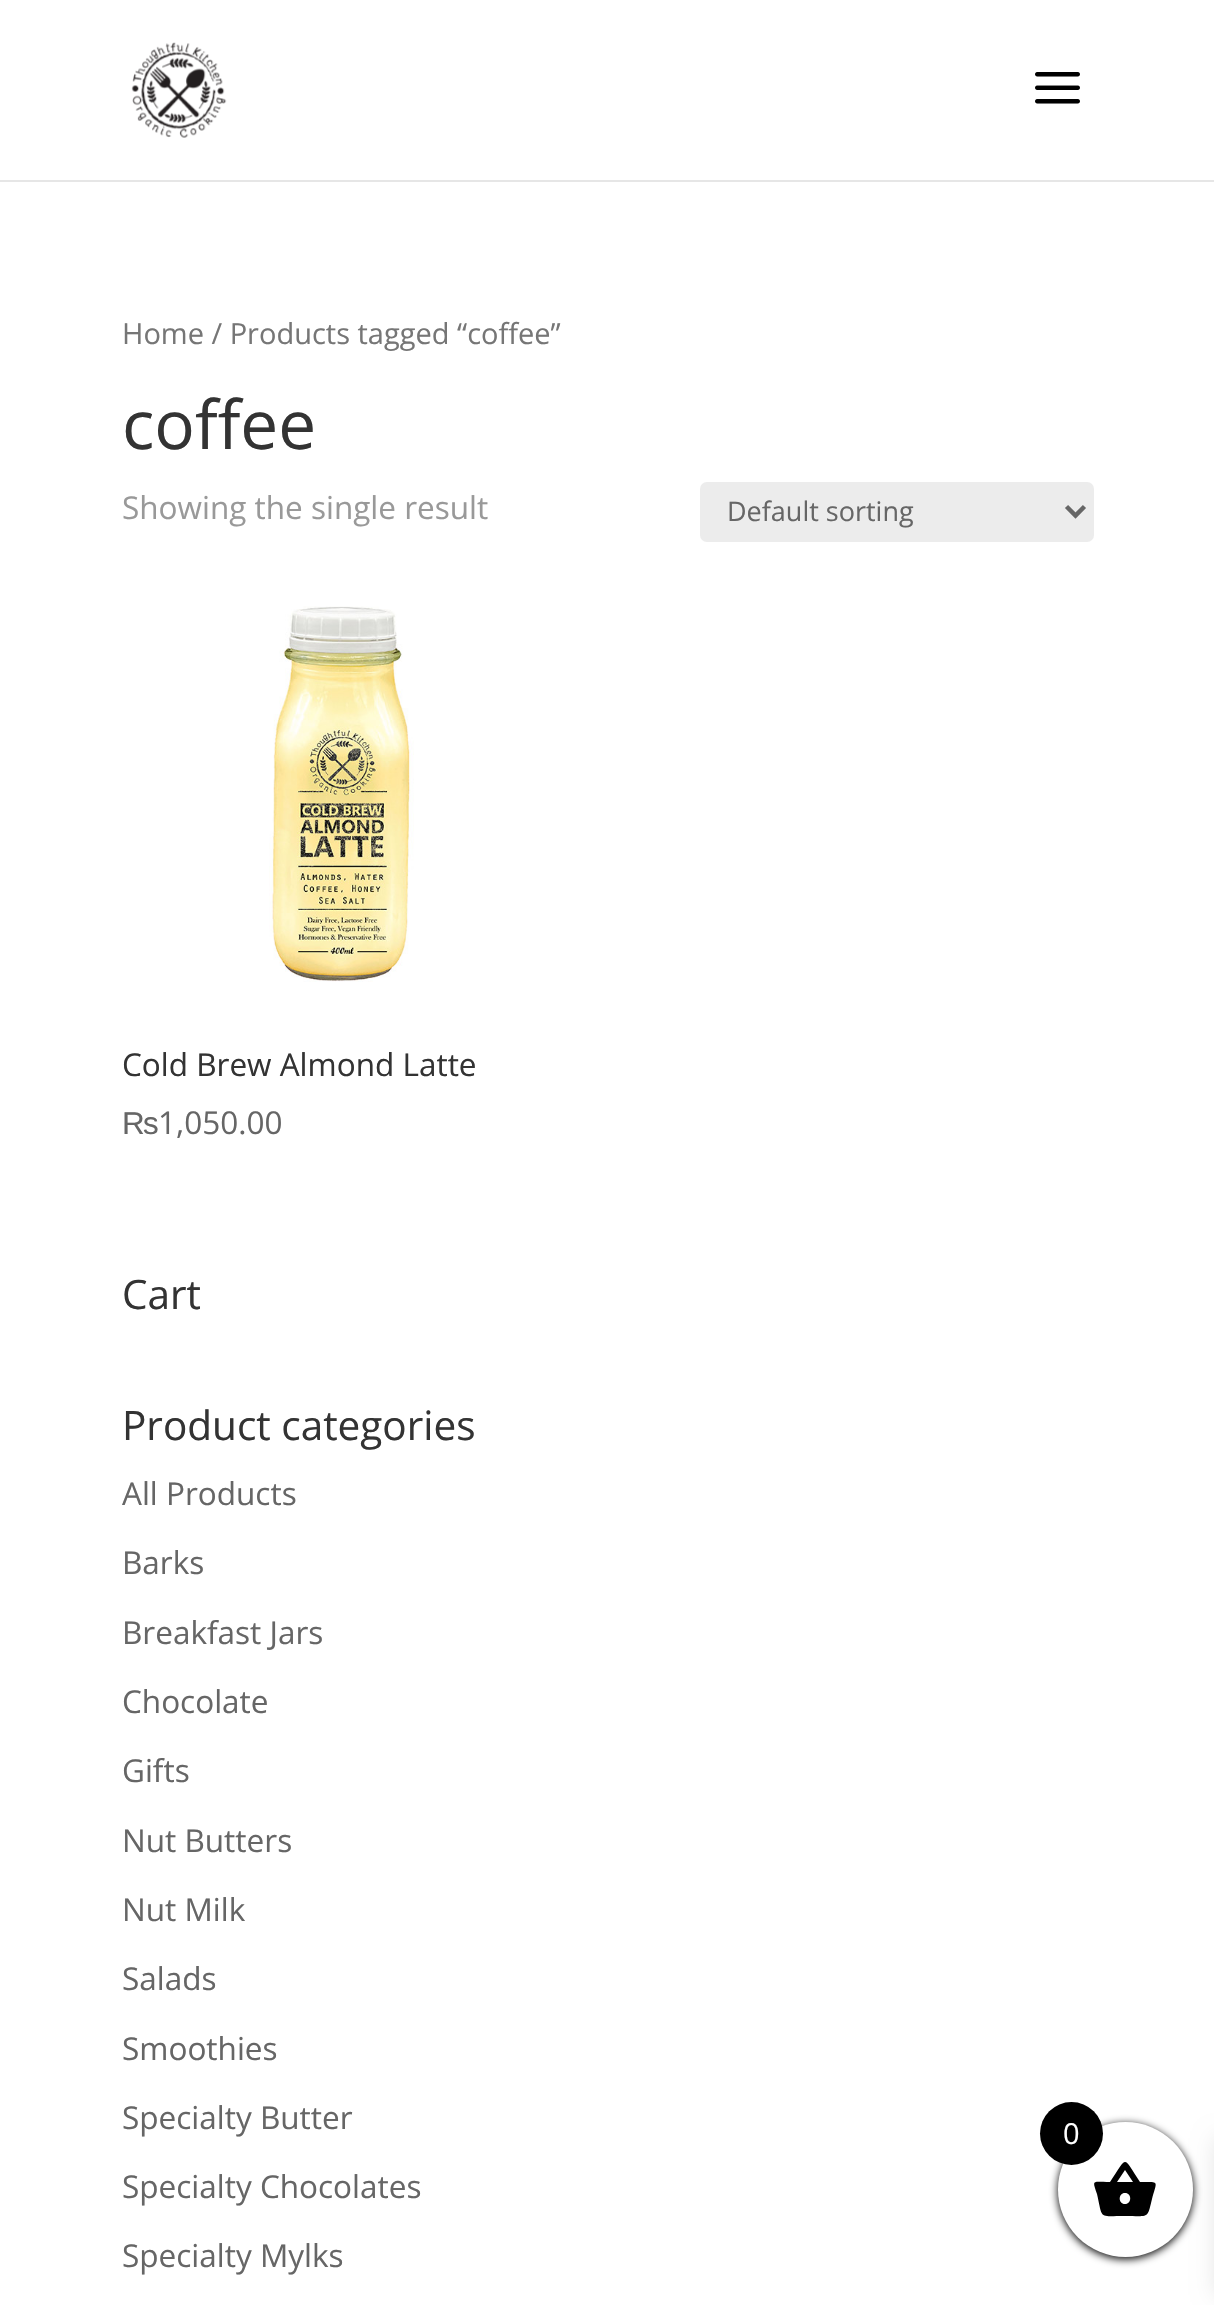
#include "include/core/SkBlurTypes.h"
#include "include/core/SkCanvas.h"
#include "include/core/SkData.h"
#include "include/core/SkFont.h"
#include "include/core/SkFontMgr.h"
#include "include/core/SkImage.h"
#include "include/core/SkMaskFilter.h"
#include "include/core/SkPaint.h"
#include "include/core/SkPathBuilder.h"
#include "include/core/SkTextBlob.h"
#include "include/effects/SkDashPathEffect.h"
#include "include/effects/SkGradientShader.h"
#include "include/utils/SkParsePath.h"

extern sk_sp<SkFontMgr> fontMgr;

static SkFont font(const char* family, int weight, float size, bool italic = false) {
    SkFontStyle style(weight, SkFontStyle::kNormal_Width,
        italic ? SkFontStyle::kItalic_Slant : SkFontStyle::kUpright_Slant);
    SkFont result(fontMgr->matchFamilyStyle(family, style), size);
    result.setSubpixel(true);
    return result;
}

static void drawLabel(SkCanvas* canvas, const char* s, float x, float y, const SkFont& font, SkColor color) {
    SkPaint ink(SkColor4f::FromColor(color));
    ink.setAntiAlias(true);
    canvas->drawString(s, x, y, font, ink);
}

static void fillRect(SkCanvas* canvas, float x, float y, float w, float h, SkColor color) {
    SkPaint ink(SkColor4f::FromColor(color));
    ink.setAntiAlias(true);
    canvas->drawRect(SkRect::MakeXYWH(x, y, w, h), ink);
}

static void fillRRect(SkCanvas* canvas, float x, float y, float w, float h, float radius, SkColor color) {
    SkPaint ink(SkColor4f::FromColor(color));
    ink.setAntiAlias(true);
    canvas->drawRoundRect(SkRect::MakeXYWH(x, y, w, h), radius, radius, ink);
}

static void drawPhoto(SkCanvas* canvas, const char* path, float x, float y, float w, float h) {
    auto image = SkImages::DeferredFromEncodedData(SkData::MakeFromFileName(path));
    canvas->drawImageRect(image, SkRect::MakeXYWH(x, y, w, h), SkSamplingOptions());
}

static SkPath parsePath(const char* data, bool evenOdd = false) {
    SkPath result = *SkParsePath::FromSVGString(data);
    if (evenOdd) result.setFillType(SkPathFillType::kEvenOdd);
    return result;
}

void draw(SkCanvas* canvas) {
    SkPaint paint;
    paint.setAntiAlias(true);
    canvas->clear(0xFFFFFFFF);
    fillRect(canvas, 0, 180, 1214, 2, 0xFFE6E6E6);
    drawPhoto(canvas, "assets/img1.png", 131, 42, 96, 96);
    drawPhoto(canvas, "assets/img2.png", 1035, 72, 45, 32);
    SkFont font1 = font("Open Sans", 400, 29);
    drawLabel(canvas, "Home / Products tagged “coffee”", 122, 344, font1, 0xFF767676);
    SkFont font2 = font("Open Sans", 400, 67.5f);
    drawLabel(canvas, "coffee", 122, 449, font2, 0xFF333333);
    SkFont font3 = font("Open Sans", 400, 31.5f);
    drawLabel(canvas, "Showing the single result", 122, 519, font3, 0xFF999999);
    fillRRect(canvas, 700, 482, 394, 60, 7, 0xFFECECEC);
    paint.setStroke(true);
    paint.setStrokeWidth(4.5f);
    paint.setColor(0xFF666666);
    canvas->drawPath(parsePath("M1066.5 506.5L1075.5 515.5L1084.5 506.5"), paint);
    SkFont font4 = font("Open Sans", 400, 27);
    drawLabel(canvas, "Default sorting", 727, 521, font4, 0xFF666666);
    drawPhoto(canvas, "assets/img3.png", 269, 606, 145, 376);
    drawLabel(canvas, "Cold Brew Almond Latte", 122, 1076, font3, 0xFF333333);
    SkFont font5 = font("Liberation Sans", 400, 31.5f);
    drawLabel(canvas, "₨", 122, 1134, font5, 0xFF666666);
    drawLabel(canvas, "1,050.00", 158, 1134, font3, 0xFF666666);
    SkFont font6 = font("Open Sans", 400, 40.5f);
    drawLabel(canvas, "Cart", 122, 1309, font6, 0xFF333333);
    drawLabel(canvas, "Product categories", 122, 1440, font6, 0xFF333333);
    drawLabel(canvas, "All Products", 122, 1505, font3, 0xFF666666);
    drawLabel(canvas, "Barks", 122, 1574, font3, 0xFF666666);
    drawLabel(canvas, "Breakfast Jars", 122, 1644, font3, 0xFF666666);
    drawLabel(canvas, "Chocolate", 122, 1713, font3, 0xFF666666);
    drawLabel(canvas, "Gifts", 122, 1782, font3, 0xFF666666);
    drawLabel(canvas, "Nut Butters", 122, 1852, font3, 0xFF666666);
    drawLabel(canvas, "Nut Milk", 122, 1921, font3, 0xFF666666);
    drawLabel(canvas, "Salads", 122, 1990, font3, 0xFF666666);
    drawLabel(canvas, "Smoothies", 122, 2060, font3, 0xFF666666);
    drawLabel(canvas, "Specialty Butter", 122, 2129, font3, 0xFF666666);
    drawLabel(canvas, "Specialty Chocolates", 122, 2198, font3, 0xFF666666);
    drawLabel(canvas, "Specialty Mylks", 122, 2267, font3, 0xFF666666);
    paint.setStroke(false);
    paint.setColor(0xFF000000);
    paint.setMaskFilter(SkMaskFilter::MakeBlur(kNormal_SkBlurStyle, 4.5f));
    canvas->drawRoundRect(SkRect::MakeXYWH(1058, 2124, 135, 135), 67.5f, 67.5f, paint);
    paint.setMaskFilter(nullptr);
    paint.setColor(0x1A000000);
    paint.setMaskFilter(SkMaskFilter::MakeBlur(kNormal_SkBlurStyle, 11));
    canvas->drawRect(SkRect::MakeXYWH(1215, 2138, 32, 157), paint);
    paint.setMaskFilter(nullptr);
    paint.setColor(0xFFFFFFFF);
    canvas->drawCircle(1125.5f, 2189.5f, 67.5f, paint);
    paint.setColor(0xFF000000);
    canvas->drawPath(parsePath("M1125 2204C1132 2204 1132 2193 1125 2193C1118 2193 1118 2204 1125 2204ZM1117 2182H1133L1125 2170ZM1140 2182C1160 2182 1157 2180 1152 2199C1147 2219 1150 2216 1125 2216C1098 2216 1103 2220 1097 2194C1092 2179 1092 2182 1110 2182C1128 2156 1122 2155 1140 2182Z"), paint);
    canvas->drawCircle(1071.5f, 2133.5f, 31.5f, paint);
    drawLabel(canvas, "0", 1063, 2144, font1, 0xFFFFFFFF);
}
